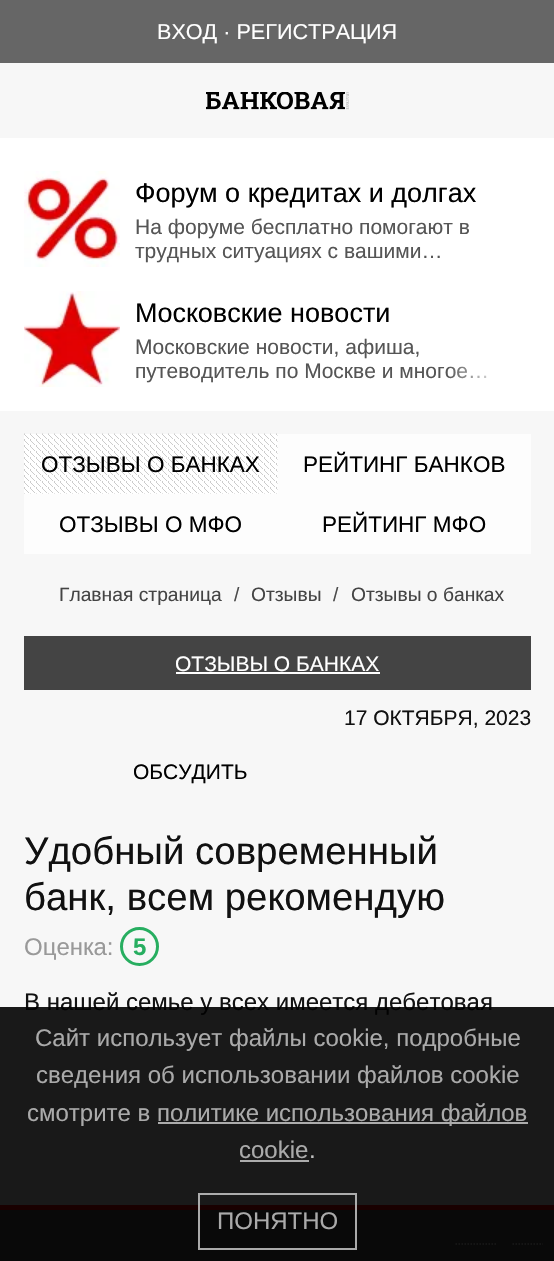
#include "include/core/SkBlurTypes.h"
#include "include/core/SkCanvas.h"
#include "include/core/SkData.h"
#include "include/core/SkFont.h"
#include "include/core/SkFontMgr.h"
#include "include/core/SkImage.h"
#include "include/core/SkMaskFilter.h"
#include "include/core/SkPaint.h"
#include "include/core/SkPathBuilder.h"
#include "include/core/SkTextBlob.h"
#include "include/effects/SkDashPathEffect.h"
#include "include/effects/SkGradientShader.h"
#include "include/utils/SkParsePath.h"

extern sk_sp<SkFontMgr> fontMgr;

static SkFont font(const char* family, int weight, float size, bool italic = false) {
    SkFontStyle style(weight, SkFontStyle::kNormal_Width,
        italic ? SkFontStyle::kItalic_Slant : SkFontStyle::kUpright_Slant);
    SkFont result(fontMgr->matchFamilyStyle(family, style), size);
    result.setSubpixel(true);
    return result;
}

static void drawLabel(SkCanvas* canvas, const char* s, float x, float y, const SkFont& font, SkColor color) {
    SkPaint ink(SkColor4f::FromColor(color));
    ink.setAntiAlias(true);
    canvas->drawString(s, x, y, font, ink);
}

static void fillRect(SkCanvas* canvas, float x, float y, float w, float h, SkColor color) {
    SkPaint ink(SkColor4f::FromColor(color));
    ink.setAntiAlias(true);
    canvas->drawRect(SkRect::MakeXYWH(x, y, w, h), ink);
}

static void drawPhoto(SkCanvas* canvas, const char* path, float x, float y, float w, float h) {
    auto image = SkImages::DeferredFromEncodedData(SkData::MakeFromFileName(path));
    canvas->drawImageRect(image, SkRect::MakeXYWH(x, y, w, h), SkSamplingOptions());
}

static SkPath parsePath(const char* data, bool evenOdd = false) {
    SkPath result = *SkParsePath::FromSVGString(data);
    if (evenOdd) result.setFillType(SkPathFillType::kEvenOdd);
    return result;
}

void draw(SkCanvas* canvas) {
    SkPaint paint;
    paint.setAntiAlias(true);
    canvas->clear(0xFF666666);
    SkFont font1 = font("Liberation Sans", 400, 21.6f);
    drawLabel(canvas, "ВХОД · РЕГИСТРАЦИЯ", 157, 39, font1, 0xFFFFFFFF);
    fillRect(canvas, 0, 63, 554, 1142, 0xFFF7F7F7);
    drawPhoto(canvas, "assets/img1.png", 206, 92, 143, 18);
    fillRect(canvas, 0, 138, 554, 273, 0xFFFFFFFF);
    drawPhoto(canvas, "assets/img2.png", 24, 171, 96, 96);
    SkFont font2 = font("Liberation Sans", 400, 27);
    drawLabel(canvas, "Форум о кредитах и долгах", 135, 202, font2, 0xFF000000);
    SkFont font3 = font("Liberation Sans", 400, 21);
    drawLabel(canvas, "На форуме бесплатно помогают в", 135, 234, font3, 0xFF555555);
    drawLabel(canvas, "трудных ситуациях с вашими…", 135, 258, font3, 0xFF555555);
    drawPhoto(canvas, "assets/img3.png", 24, 291, 96, 96);
    drawLabel(canvas, "Московские новости", 135, 322, font2, 0xFF000000);
    drawLabel(canvas, "Московские новости, афиша,", 135, 354, font3, 0xFF555555);
    drawLabel(canvas, "путеводитель по Москве и многое…", 135, 378, font3, 0xFF555555);
    {
        const SkColor colors[] = {0x00FFFFFF, 0xFFFFFFFF, 0xFFFFFFFF};
        const float stops[] = {0, 0.7f, 1};
        const SkPoint ends[] = {{447, 370}, {531, 370}};
        paint.setShader(SkGradientShader::MakeLinear(ends, colors, stops, 3, SkTileMode::kClamp));
        paint.setAlpha(255);
    }
    canvas->drawRect(SkRect::MakeXYWH(448, 366, 39, 13), paint);
    fillRect(canvas, 24, 434, 254, 60, 0xFFFFFFFF);
    drawPhoto(canvas, "assets/img4.png", 24, 433, 254, 61);
    SkFont font4 = font("Liberation Sans", 400, 22.5f);
    drawLabel(canvas, "ОТЗЫВЫ О БАНКАХ", 41, 472, font4, 0xFF000000);
    fillRect(canvas, 278, 434, 253, 60, 0xFFFDFDFD);
    drawLabel(canvas, "РЕЙТИНГ БАНКОВ", 303, 472, font4, 0xFF000000);
    fillRect(canvas, 24, 494, 507, 60, 0xFFFDFDFD);
    drawLabel(canvas, "ОТЗЫВЫ О МФО", 59, 532, font4, 0xFF000000);
    drawLabel(canvas, "РЕЙТИНГ МФО", 322, 532, font4, 0xFF000000);
    SkFont font5 = font("Liberation Sans", 400, 19.25f);
    drawLabel(canvas, "Главная страница", 59, 601, font5, 0xFF444444);
    drawLabel(canvas, "/", 234, 601, font5, 0xFF4B4B4B);
    drawLabel(canvas, "Отзывы", 251, 601, font5, 0xFF444444);
    drawLabel(canvas, "/", 333, 601, font5, 0xFF4B4B4B);
    drawLabel(canvas, "Отзывы о банках", 351, 601, font5, 0xFF444444);
    fillRect(canvas, 24, 636, 507, 54, 0xFF444444);
    drawLabel(canvas, "ОТЗЫВЫ О БАНКАХ", 175, 671, font3, 0xFFFFFFFF);
    fillRect(canvas, 176, 672, 204, 2, 0xFFFFFFFF);
    drawLabel(canvas, "17 ОКТЯБРЯ, 2023", 344, 725, font3, 0xFF111111);
    drawLabel(canvas, "ОБСУДИТЬ", 133, 779, font3, 0xFF000000);
    SkFont font6 = font("Liberation Sans", 400, 38.4f);
    drawLabel(canvas, "Удобный современный", 24, 864, font6, 0xFF111111);
    drawLabel(canvas, "банк, всем рекомендую", 24, 910, font6, 0xFF111111);
    SkFont font7 = font("Liberation Sans", 400, 24);
    drawLabel(canvas, "Оценка:", 24, 955, font7, 0xFF999999);
    paint.setStroke(true);
    paint.setStrokeWidth(3);
    paint.setShader(nullptr);
    paint.setColor(0xFF27AE60);
    canvas->drawCircle(139.5f, 946.5f, 18, paint);
    SkFont font8 = font("Liberation Sans", 700, 24);
    drawLabel(canvas, "5", 133, 955, font8, 0xFF27AE60);
    drawLabel(canvas, "В нашей семье у всех имеется дебетовая", 24, 1010, font7, 0xFF111111);
    fillRect(canvas, 0, 1210, 554, 51, 0xFF555555);
    fillRect(canvas, 0, 1205, 554, 5, 0xFFFF0000);
    paint.setStrokeWidth(1.5f);
    paint.setColor(0xFFFFFFFF);
    paint.setPathEffect(SkDashPathEffect::Make({{1.5f, 1.5f}}, 0));
    canvas->drawPath(parsePath("M455.5 1244H496.5"), paint);
    paint.setPathEffect(nullptr);
    paint.setPathEffect(SkDashPathEffect::Make({{1.5f, 1.5f}}, 0));
    canvas->drawPath(parsePath("M512.5 1244H543"), paint);
    paint.setPathEffect(nullptr);
    fillRect(canvas, 0, 1007, 554, 254, 0xE6000000);
    drawLabel(canvas, "Сайт использует файлы cookie, подробные", 35, 1046, font7, 0xFFAAAAAA);
    drawLabel(canvas, "сведения об использовании файлов cookie", 36, 1083, font7, 0xFFAAAAAA);
    drawLabel(canvas, "смотрите в", 27, 1121, font7, 0xFFAAAAAA);
    fillRect(canvas, 158, 1122, 370, 2, 0xE6BBBBBB);
    drawLabel(canvas, "политике использования файлов", 157, 1121, font7, 0xFFAAAAAA);
    drawLabel(canvas, "cookie", 239, 1158, font7, 0xFFAAAAAA);
    fillRect(canvas, 240, 1160, 69, 2, 0xE6BBBBBB);
    drawLabel(canvas, ".", 309, 1158, font7, 0xFFC1C1C1);
    paint.setStrokeWidth(2);
    paint.setColor(0xE6BBBBBB);
    canvas->drawRect(SkRect::MakeXYWH(199, 1194, 157, 55), paint);
    drawLabel(canvas, "ПОНЯТНО", 217, 1229, font7, 0xFFAAAAAA);
}
